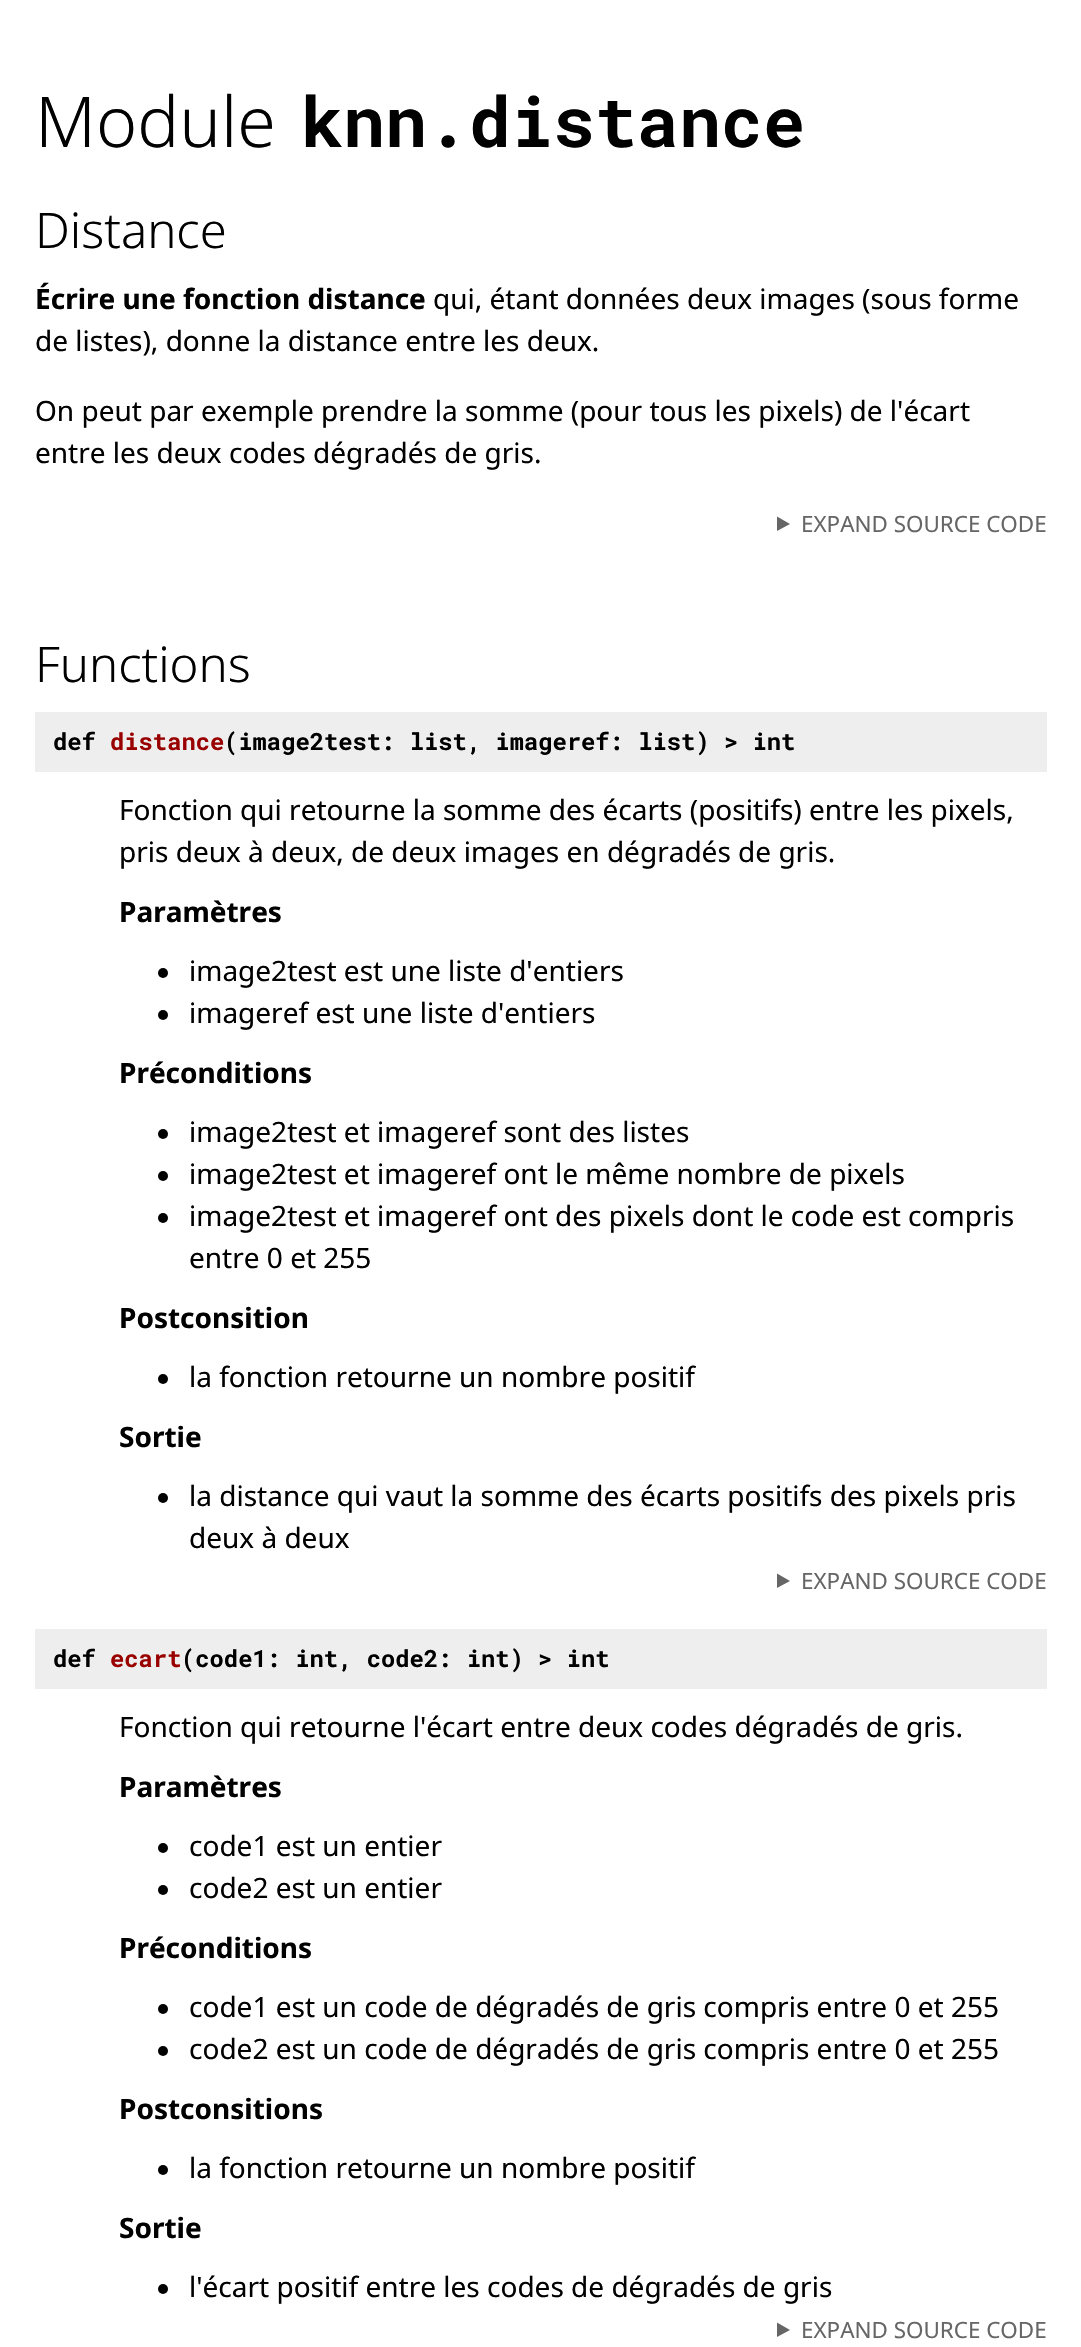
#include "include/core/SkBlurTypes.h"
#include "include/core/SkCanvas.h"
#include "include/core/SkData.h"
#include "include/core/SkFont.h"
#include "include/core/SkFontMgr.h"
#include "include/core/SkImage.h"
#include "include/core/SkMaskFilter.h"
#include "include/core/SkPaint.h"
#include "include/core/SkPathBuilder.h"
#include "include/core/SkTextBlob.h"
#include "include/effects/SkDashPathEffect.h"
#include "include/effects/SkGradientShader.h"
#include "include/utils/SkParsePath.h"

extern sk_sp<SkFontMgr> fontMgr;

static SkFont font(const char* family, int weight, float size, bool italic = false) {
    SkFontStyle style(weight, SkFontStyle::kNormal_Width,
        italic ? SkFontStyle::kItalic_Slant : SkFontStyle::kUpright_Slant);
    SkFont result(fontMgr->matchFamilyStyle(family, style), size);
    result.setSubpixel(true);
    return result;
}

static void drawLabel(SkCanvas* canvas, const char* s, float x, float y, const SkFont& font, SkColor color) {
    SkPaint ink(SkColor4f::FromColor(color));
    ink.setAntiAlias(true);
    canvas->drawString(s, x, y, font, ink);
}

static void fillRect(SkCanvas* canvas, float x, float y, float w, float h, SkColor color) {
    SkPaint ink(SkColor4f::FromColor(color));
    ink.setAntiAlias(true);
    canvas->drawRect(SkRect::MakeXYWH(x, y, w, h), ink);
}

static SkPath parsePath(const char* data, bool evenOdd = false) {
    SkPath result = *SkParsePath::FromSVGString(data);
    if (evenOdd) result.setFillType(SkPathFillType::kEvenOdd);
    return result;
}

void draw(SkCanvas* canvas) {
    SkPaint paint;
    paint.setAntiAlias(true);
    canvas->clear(0xFFFFFFFF);
    SkFont font1 = font("Noto Sans", 300, 70);
    drawLabel(canvas, "Module", 35, 147, font1, 0xFF000000);
    SkFont font2 = font("Roboto Mono", 700, 70);
    drawLabel(canvas, "knn.distance", 301, 147, font2, 0xFF000000);
    SkFont font3 = font("Noto Sans", 300, 49);
    drawLabel(canvas, "Distance", 35, 248, font3, 0xFF000000);
    SkFont font4 = font("Noto Sans", 700, 28);
    drawLabel(canvas, "Écrire une fonction distance", 35, 309, font4, 0xFF000000);
    SkFont font5 = font("Noto Sans", 400, 28);
    drawLabel(canvas, "qui, étant données deux images (sous forme", 433, 309, font5, 0xFF000000);
    drawLabel(canvas, "de listes), donne la distance entre les deux.", 35, 351, font5, 0xFF000000);
    drawLabel(canvas, "On peut par exemple prendre la somme (pour tous les pixels) de l'écart", 35, 421, font5, 0xFF000000);
    drawLabel(canvas, "entre les deux codes dégradés de gris.", 35, 463, font5, 0xFF000000);
    paint.setColor(0xFF666666);
    canvas->drawPath(parsePath("M777 516.5L790 524L777 531Z"), paint);
    SkFont font6 = font("Noto Sans", 400, 22.4f);
    drawLabel(canvas, "EXPAND SOURCE CODE", 801, 532, font6, 0xFF666666);
    drawLabel(canvas, "Functions", 35, 682, font3, 0xFF000000);
    fillRect(canvas, 35, 712, 1012, 60, 0xFFEEEEEE);
    SkFont font7 = font("Roboto Mono", 700, 23.8f);
    drawLabel(canvas, "def", 53, 750, font7, 0xFF000000);
    drawLabel(canvas, "distance", 110, 750, font7, 0xFF990000);
    drawLabel(canvas, "(image2test: list, imageref: list) ‑> int", 224, 750, font7, 0xFF000000);
    drawLabel(canvas, "Fonction qui retourne la somme des écarts (positifs) entre les pixels,", 119, 820, font5, 0xFF000000);
    drawLabel(canvas, "pris deux à deux, de deux images en dégradés de gris.", 119, 862, font5, 0xFF000000);
    drawLabel(canvas, "Paramètres", 119, 922, font4, 0xFF000000);
    paint.setColor(0xFF000000);
    canvas->drawCircle(163, 973, 5, paint);
    drawLabel(canvas, "image2test est une liste d'entiers", 189, 981, font5, 0xFF000000);
    canvas->drawCircle(163, 1015, 5, paint);
    drawLabel(canvas, "imageref est une liste d'entiers", 189, 1023, font5, 0xFF000000);
    drawLabel(canvas, "Préconditions", 119, 1083, font4, 0xFF000000);
    canvas->drawCircle(163, 1134, 5, paint);
    drawLabel(canvas, "image2test et imageref sont des listes", 189, 1142, font5, 0xFF000000);
    canvas->drawCircle(163, 1176, 5, paint);
    drawLabel(canvas, "image2test et imageref ont le même nombre de pixels", 189, 1184, font5, 0xFF000000);
    canvas->drawCircle(163, 1218, 5, paint);
    drawLabel(canvas, "image2test et imageref ont des pixels dont le code est compris", 189, 1226, font5, 0xFF000000);
    drawLabel(canvas, "entre 0 et 255", 189, 1268, font5, 0xFF000000);
    drawLabel(canvas, "Postconsition", 119, 1328, font4, 0xFF000000);
    canvas->drawCircle(163, 1379, 5, paint);
    drawLabel(canvas, "la fonction retourne un nombre positif", 189, 1387, font5, 0xFF000000);
    drawLabel(canvas, "Sortie", 119, 1447, font4, 0xFF000000);
    canvas->drawCircle(163, 1498, 5, paint);
    drawLabel(canvas, "la distance qui vaut la somme des écarts positifs des pixels pris", 189, 1506, font5, 0xFF000000);
    drawLabel(canvas, "deux à deux", 189, 1548, font5, 0xFF000000);
    paint.setColor(0xFF666666);
    canvas->drawPath(parsePath("M777 1573.5L790 1581L777 1588Z"), paint);
    drawLabel(canvas, "EXPAND SOURCE CODE", 801, 1589, font6, 0xFF666666);
    fillRect(canvas, 35, 1629, 1012, 60, 0xFFEEEEEE);
    drawLabel(canvas, "def", 53, 1667, font7, 0xFF000000);
    drawLabel(canvas, "ecart", 110, 1667, font7, 0xFF990000);
    drawLabel(canvas, "(code1: int, code2: int) ‑> int", 181, 1667, font7, 0xFF000000);
    drawLabel(canvas, "Fonction qui retourne l'écart entre deux codes dégradés de gris.", 119, 1737, font5, 0xFF000000);
    drawLabel(canvas, "Paramètres", 119, 1797, font4, 0xFF000000);
    paint.setColor(0xFF000000);
    canvas->drawCircle(163, 1848, 5, paint);
    drawLabel(canvas, "code1 est un entier", 189, 1856, font5, 0xFF000000);
    canvas->drawCircle(163, 1890, 5, paint);
    drawLabel(canvas, "code2 est un entier", 189, 1898, font5, 0xFF000000);
    drawLabel(canvas, "Préconditions", 119, 1958, font4, 0xFF000000);
    canvas->drawCircle(163, 2009, 5, paint);
    drawLabel(canvas, "code1 est un code de dégradés de gris compris entre 0 et 255", 189, 2017, font5, 0xFF000000);
    canvas->drawCircle(163, 2051, 5, paint);
    drawLabel(canvas, "code2 est un code de dégradés de gris compris entre 0 et 255", 189, 2059, font5, 0xFF000000);
    drawLabel(canvas, "Postconsitions", 119, 2119, font4, 0xFF000000);
    canvas->drawCircle(163, 2170, 5, paint);
    drawLabel(canvas, "la fonction retourne un nombre positif", 189, 2178, font5, 0xFF000000);
    drawLabel(canvas, "Sortie", 119, 2238, font4, 0xFF000000);
    canvas->drawCircle(163, 2289, 5, paint);
    drawLabel(canvas, "l'écart positif entre les codes de dégradés de gris", 189, 2297, font5, 0xFF000000);
    paint.setColor(0xFF666666);
    canvas->drawPath(parsePath("M777 2322.5L790 2330L777 2337Z"), paint);
    drawLabel(canvas, "EXPAND SOURCE CODE", 801, 2338, font6, 0xFF666666);
}
